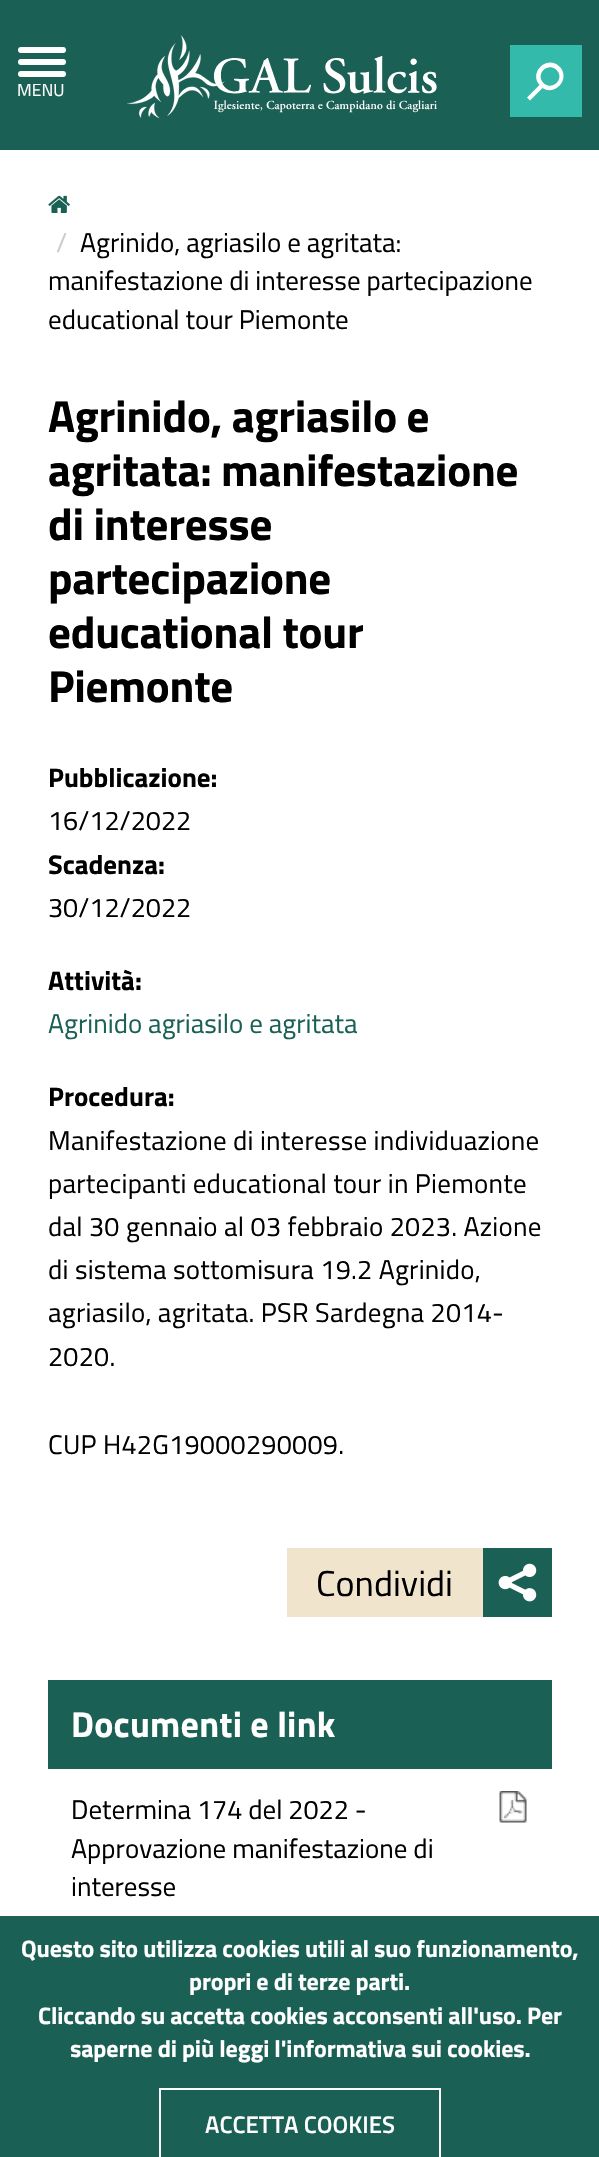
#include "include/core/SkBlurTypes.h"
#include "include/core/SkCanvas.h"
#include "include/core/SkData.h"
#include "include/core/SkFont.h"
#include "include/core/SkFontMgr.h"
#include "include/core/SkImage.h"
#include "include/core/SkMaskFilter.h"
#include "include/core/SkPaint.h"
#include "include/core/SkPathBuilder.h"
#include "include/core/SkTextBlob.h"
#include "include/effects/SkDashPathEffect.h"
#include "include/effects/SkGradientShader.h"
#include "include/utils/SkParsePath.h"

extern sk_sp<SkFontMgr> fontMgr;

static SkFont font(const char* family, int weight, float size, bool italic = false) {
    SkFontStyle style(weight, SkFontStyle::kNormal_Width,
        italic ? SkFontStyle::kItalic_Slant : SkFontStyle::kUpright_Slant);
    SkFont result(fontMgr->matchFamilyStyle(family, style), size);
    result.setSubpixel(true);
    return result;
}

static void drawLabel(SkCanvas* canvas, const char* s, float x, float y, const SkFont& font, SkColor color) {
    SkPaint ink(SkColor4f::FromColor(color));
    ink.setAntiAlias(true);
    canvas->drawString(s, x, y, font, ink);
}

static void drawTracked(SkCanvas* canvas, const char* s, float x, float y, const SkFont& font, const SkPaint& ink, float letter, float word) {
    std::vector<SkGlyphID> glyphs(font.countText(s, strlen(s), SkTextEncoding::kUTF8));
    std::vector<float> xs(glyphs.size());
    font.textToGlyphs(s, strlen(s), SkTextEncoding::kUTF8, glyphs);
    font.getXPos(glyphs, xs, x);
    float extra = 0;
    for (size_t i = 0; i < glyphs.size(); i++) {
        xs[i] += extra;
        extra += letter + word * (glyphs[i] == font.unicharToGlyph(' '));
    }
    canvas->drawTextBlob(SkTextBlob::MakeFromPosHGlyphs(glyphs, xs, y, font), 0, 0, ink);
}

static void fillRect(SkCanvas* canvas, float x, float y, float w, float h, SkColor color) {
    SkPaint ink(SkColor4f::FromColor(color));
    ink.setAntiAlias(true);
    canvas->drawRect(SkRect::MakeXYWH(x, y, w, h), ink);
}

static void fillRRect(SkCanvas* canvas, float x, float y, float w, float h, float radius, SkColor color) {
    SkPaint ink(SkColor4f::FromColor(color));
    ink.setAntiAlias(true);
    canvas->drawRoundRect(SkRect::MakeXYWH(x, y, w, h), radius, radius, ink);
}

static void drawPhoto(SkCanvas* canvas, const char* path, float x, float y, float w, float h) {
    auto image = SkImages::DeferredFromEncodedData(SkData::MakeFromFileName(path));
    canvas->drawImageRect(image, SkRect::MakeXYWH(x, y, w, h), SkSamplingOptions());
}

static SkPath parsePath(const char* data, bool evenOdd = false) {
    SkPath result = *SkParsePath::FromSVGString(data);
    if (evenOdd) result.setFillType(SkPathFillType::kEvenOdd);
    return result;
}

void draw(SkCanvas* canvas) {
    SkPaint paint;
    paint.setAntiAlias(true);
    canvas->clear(0xFFFFFFFF);
    fillRect(canvas, 0, 0, 599, 150, 0xFF1A6054);
    fillRRect(canvas, 18, 47, 48, 6, 3, 0xFFFFFFFF);
    fillRRect(canvas, 18, 59, 48, 6, 3, 0xFFFFFFFF);
    fillRRect(canvas, 18, 71, 48, 6, 3, 0xFFFFFFFF);
    SkFont font1 = font("Titillium Web", 400, 17.5f);
    drawLabel(canvas, "MENU", 17, 96, font1, 0xFFFFFFFF);
    drawPhoto(canvas, "assets/img1.png", 127, 35, 310, 84);
    fillRect(canvas, 510, 45, 72, 72, 0xFF33BAAB);
    paint.setColor(0xFFFFFFFF);
    canvas->drawPath(parsePath("M559.5 66.5C571 78 556 96.5 542.5 88L530 100.5L527 97.5L539.5 85C528.5 72 547.5 54.5 559.5 66.5ZM556.5 83C565.5 74 552 61.5 543.5 70C535 78.5 547.5 91.5 556.5 83Z"), paint);
    drawPhoto(canvas, "assets/img2.png", 48, 195, 22, 18);
    SkFont font2 = font("Titillium Web", 400, 27);
    drawLabel(canvas, "/", 56, 252, font2, 0xFFCCCCCC);
    drawLabel(canvas, "Agrinido, agriasilo e agritata:", 80, 252, font2, 0xFF000000);
    drawLabel(canvas, "manifestazione di interesse partecipazione", 48, 290, font2, 0xFF000000);
    drawLabel(canvas, "educational tour Piemonte", 48, 329, font2, 0xFF000000);
    SkFont font3 = font("Titillium Web", 700, 45);
    paint.setColor(0xFF000000);
    drawTracked(canvas, "Agrinido, agriasilo e", 48, 432, font3, paint, -0.25f, 0);
    drawTracked(canvas, "agritata: manifestazione", 48, 486, font3, paint, -0.25f, 0);
    drawTracked(canvas, "di interesse", 48, 540, font3, paint, -0.25f, 0);
    drawTracked(canvas, "partecipazione", 48, 594, font3, paint, -0.25f, 0);
    drawTracked(canvas, "educational tour", 48, 648, font3, paint, -0.25f, 0);
    drawTracked(canvas, "Piemonte", 48, 702, font3, paint, -0.25f, 0);
    SkFont font4 = font("Titillium Web", 700, 27);
    drawLabel(canvas, "Pubblicazione:", 48, 787, font4, 0xFF000000);
    drawLabel(canvas, "16/12/2022", 48, 830, font2, 0xFF000000);
    drawLabel(canvas, "Scadenza:", 48, 874, font4, 0xFF000000);
    drawLabel(canvas, "30/12/2022", 48, 917, font2, 0xFF000000);
    drawLabel(canvas, "Attività:", 48, 990, font4, 0xFF000000);
    drawLabel(canvas, "Agrinido agriasilo e agritata", 48, 1033, font2, 0xFF1A6054);
    drawLabel(canvas, "Procedura:", 48, 1106, font4, 0xFF000000);
    drawTracked(canvas, "Manifestazione di interesse individuazione", 48, 1150, font2, paint, 0.25f, 0);
    drawTracked(canvas, "partecipanti educational tour in Piemonte", 48, 1193, font2, paint, 0.25f, 0);
    drawTracked(canvas, "dal 30 gennaio al 03 febbraio 2023. Azione", 48, 1236, font2, paint, 0.25f, 0);
    drawTracked(canvas, "di sistema sottomisura 19.2 Agrinido,", 48, 1279, font2, paint, 0.25f, 0);
    drawTracked(canvas, "agriasilo, agritata. PSR Sardegna 2014-", 48, 1322, font2, paint, 0.25f, 0);
    drawTracked(canvas, "2020.", 48, 1366, font2, paint, 0.25f, 0);
    drawTracked(canvas, "CUP H42G19000290009.", 48, 1454, font2, paint, 0.25f, 0);
    fillRect(canvas, 287, 1548, 196, 69, 0xFFF0E5CC);
    SkFont font5 = font("Titillium Web", 400, 36);
    drawLabel(canvas, "Condividi", 316, 1596, font5, 0xFF000000);
    fillRect(canvas, 483, 1548, 69, 69, 0xFF1A6054);
    drawPhoto(canvas, "assets/img3.png", 498, 1563, 39, 39);
    fillRect(canvas, 48, 1680, 504, 89, 0xFF1A6054);
    SkFont font6 = font("Titillium Web", 700, 36);
    paint.setColor(0xFFFFFFFF);
    drawTracked(canvas, "Documenti e link", 71, 1737, font6, paint, 0.25f, 0);
    drawLabel(canvas, "Determina 174 del 2022 -", 71, 1819, font2, 0xFF000000);
    drawLabel(canvas, "Approvazione manifestazione di", 71, 1858, font2, 0xFF000000);
    drawLabel(canvas, "interesse", 71, 1896, font2, 0xFF000000);
    drawPhoto(canvas, "assets/img4.png", 499, 1791, 28, 32);
    fillRect(canvas, 0, 1916, 599, 241, 0xFF1A6054);
    SkFont font7 = font("Titillium Web", 700, 24);
    drawTracked(canvas, "Questo sito utilizza cookies utili al suo funzionamento,", 21, 1957, font7, paint, -0.12f, 0);
    drawTracked(canvas, "propri e di terze parti.", 189, 1990, font7, paint, -0.12f, 0);
    drawTracked(canvas, "Cliccando su accetta cookies acconsenti all'uso. Per", 38, 2024, font7, paint, -0.12f, 0);
    drawTracked(canvas, "saperne di più leggi l'informativa sui cookies.", 70, 2057, font7, paint, -0.12f, 0);
    paint.setStroke(true);
    paint.setStrokeWidth(2);
    canvas->drawRect(SkRect::MakeXYWH(160, 2089, 280, 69), paint);
    SkFont font8 = font("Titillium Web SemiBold", 600, 24);
    drawLabel(canvas, "ACCETTA COOKIES", 205, 2133, font8, 0xFFFFFFFF);
}
